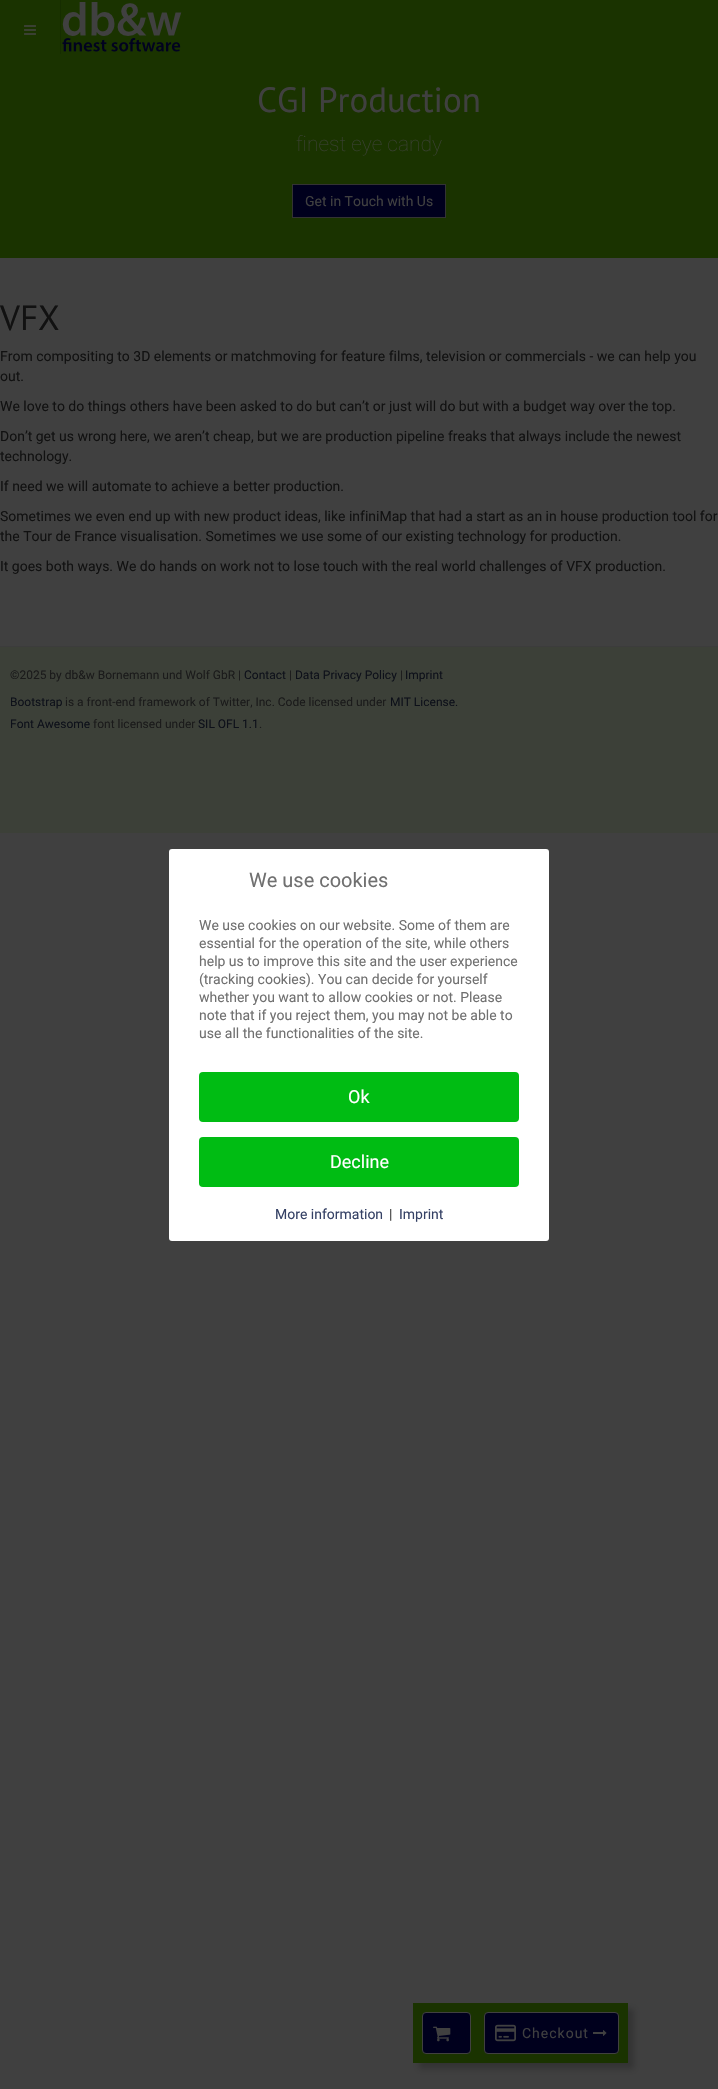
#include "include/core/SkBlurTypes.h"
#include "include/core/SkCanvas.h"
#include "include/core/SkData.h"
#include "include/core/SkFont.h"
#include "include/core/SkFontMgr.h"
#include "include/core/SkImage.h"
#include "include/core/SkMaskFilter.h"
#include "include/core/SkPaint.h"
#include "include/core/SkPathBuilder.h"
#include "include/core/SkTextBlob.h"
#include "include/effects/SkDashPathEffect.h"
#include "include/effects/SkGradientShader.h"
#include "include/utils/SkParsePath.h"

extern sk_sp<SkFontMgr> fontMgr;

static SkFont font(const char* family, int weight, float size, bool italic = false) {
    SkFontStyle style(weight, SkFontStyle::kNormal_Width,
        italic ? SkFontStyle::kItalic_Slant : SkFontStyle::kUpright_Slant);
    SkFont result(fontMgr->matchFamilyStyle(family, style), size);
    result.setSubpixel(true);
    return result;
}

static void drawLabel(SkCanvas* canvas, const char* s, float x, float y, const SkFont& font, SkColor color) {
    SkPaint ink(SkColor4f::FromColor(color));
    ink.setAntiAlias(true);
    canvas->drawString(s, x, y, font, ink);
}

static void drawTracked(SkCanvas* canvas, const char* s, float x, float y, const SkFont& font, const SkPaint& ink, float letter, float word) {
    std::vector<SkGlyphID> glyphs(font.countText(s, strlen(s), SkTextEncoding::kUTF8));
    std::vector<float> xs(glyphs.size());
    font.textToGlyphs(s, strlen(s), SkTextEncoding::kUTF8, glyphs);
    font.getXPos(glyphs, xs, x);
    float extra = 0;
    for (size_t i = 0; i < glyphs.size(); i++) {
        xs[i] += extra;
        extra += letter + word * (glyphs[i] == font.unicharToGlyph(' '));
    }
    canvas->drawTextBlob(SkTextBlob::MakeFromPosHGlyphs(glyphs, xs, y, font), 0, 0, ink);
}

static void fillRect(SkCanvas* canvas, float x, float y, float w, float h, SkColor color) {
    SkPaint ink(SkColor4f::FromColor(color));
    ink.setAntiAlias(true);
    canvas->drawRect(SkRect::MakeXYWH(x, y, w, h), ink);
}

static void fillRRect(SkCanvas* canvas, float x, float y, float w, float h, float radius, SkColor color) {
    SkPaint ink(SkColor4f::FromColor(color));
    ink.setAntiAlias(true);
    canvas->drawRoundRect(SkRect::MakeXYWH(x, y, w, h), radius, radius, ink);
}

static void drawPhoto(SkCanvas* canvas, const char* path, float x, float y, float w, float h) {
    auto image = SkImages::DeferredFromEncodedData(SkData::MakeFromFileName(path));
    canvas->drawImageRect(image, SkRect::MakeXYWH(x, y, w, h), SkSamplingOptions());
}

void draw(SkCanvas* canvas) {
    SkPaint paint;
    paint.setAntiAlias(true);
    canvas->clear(0xFF404040);
    fillRect(canvas, 0, 0, 718, 258, 0xFF1A3300);
    drawPhoto(canvas, "assets/img1.png", 24, 25, 12, 10);
    fillRect(canvas, 60, 0, 1, 54, 0xFF162D00);
    drawPhoto(canvas, "assets/img2.png", 62, 2, 120, 50);
    SkFont font1 = font("PT Sans", 400, 35);
    drawLabel(canvas, "CGI Production", 257, 112, font1, 0xFF404040);
    SkFont font2 = font("Roboto", 100, 21);
    drawLabel(canvas, "finest eye candy", 296, 151, font2, 0xFF3A4033);
    paint.setColor(0xFF00001D);
    canvas->drawRect(SkRect::MakeXYWH(292.5f, 184.5f, 153, 33), paint);
    paint.setStroke(true);
    paint.setStrokeWidth(1);
    paint.setColor(0xFF333333);
    canvas->drawRect(SkRect::MakeXYWH(292.5f, 184.5f, 153, 33), paint);
    SkFont font3 = font("Roboto", 400, 14);
    drawLabel(canvas, "Get in Touch with Us", 305, 206, font3, 0xFF404040);
    drawLabel(canvas, "VFX", 0, 330, font1, 0xFF111111);
    drawLabel(canvas, "From compositing to 3D elements or matchmoving for feature films, television or commercials - we can help you", 0, 361, font3, 0xFF111111);
    drawLabel(canvas, "out.", 0, 381, font3, 0xFF111111);
    drawLabel(canvas, "We love to do things others have been asked to do but can’t or just will do but with a budget way over the top.", 0, 411, font3, 0xFF111111);
    drawLabel(canvas, "Don’t get us wrong here, we aren’t cheap, but we are production pipeline freaks that always include the newest", 0, 441, font3, 0xFF111111);
    drawLabel(canvas, "technology.", 0, 461, font3, 0xFF111111);
    drawLabel(canvas, "If need we will automate to achieve a better production.", 0, 491, font3, 0xFF111111);
    drawLabel(canvas, "Sometimes we even end up with new product ideas, like infiniMap that had a start as an in house production tool for", 0, 521, font3, 0xFF111111);
    drawLabel(canvas, "the Tour de France visualisation. Sometimes we use some of our existing technology for production.", 0, 541, font3, 0xFF111111);
    drawLabel(canvas, "It goes both ways. We do hands on work not to lose touch with the real world challenges of VFX production.", 0, 571, font3, 0xFF111111);
    fillRect(canvas, 0, 647, 718, 186, 0xFF3C4038);
    fillRect(canvas, 0, 646, 718, 1, 0xFF3C3C3C);
    SkFont font4 = font("Roboto", 400, 12);
    drawLabel(canvas, "©2025 by db&w Bornemann und Wolf GbR |", 10, 679, font4, 0xFF1A1A1A);
    drawLabel(canvas, "Contact", 244, 679, font4, 0xFF0D1019);
    drawLabel(canvas, "|", 289, 679, font4, 0xFF1A1A1A);
    drawLabel(canvas, "Data Privacy Policy", 295, 679, font4, 0xFF0D1019);
    drawLabel(canvas, "|", 400, 679, font4, 0xFF1A1A1A);
    drawLabel(canvas, "Imprint", 405, 679, font4, 0xFF0D1019);
    drawLabel(canvas, "Bootstrap", 10, 706, font4, 0xFF0D1019);
    drawLabel(canvas, "is a front-end framework of Twitter, Inc. Code licensed under", 65, 706, font4, 0xFF1A1A1A);
    drawLabel(canvas, "MIT License.", 390, 706, font4, 0xFF0D1019);
    drawLabel(canvas, "Font Awesome", 10, 728, font4, 0xFF0D1019);
    drawLabel(canvas, "font licensed under", 93, 728, font4, 0xFF1A1A1A);
    drawLabel(canvas, "SIL OFL 1.1", 198, 728, font4, 0xFF0D1019);
    drawLabel(canvas, ".", 259, 728, font4, 0xFF1A1A1A);
    fillRRect(canvas, 169, 849, 380, 392, 3, 0xFFFFFFFF);
    SkFont font5 = font("Roboto", 400, 20);
    drawLabel(canvas, "We use cookies", 249, 887, font5, 0xFF707070);
    drawLabel(canvas, "We use cookies on our website. Some of them are", 199, 930, font3, 0xFF707070);
    drawLabel(canvas, "essential for the operation of the site, while others", 199, 948, font3, 0xFF707070);
    drawLabel(canvas, "help us to improve this site and the user experience", 199, 966, font3, 0xFF707070);
    drawLabel(canvas, "(tracking cookies). You can decide for yourself", 199, 984, font3, 0xFF707070);
    drawLabel(canvas, "whether you want to allow cookies or not. Please", 199, 1002, font3, 0xFF707070);
    drawLabel(canvas, "note that if you reject them, you may not be able to", 199, 1020, font3, 0xFF707070);
    drawLabel(canvas, "use all the functionalities of the site.", 199, 1038, font3, 0xFF707070);
    fillRRect(canvas, 199, 1072, 320, 50, 4, 0xFF00BC13);
    SkFont font6 = font("Roboto", 400, 18);
    drawLabel(canvas, "Ok", 348, 1103, font6, 0xFFFFFFFF);
    fillRRect(canvas, 199, 1137, 320, 50, 4, 0xFF00BC13);
    drawLabel(canvas, "Decline", 330, 1168, font6, 0xFFFFFFFF);
    drawLabel(canvas, "More information", 275, 1219, font3, 0xFF354165);
    drawLabel(canvas, "|", 389, 1219, font3, 0xFF404040);
    drawLabel(canvas, "Imprint", 399, 1219, font3, 0xFF354165);
    paint.setStroke(false);
    paint.setColor(0x33000000);
    paint.setMaskFilter(SkMaskFilter::MakeBlur(kNormal_SkBlurStyle, 3));
    canvas->drawRect(SkRect::MakeXYWH(419, 2009, 215, 60), paint);
    paint.setMaskFilter(nullptr);
    fillRect(canvas, 413, 2003, 215, 60, 0xFF1A3300);
    paint.setColor(0xFF00001D);
    canvas->drawRoundRect(SkRect::MakeXYWH(422.5f, 2012.5f, 48, 41), 3.5f, 3.5f, paint);
    paint.setStroke(true);
    paint.setColor(0xFF404040);
    canvas->drawRoundRect(SkRect::MakeXYWH(422.5f, 2012.5f, 48, 41), 3.5f, 3.5f, paint);
    drawPhoto(canvas, "assets/img3.png", 433, 2026, 18, 16);
    paint.setStroke(false);
    paint.setColor(0xFF00001D);
    canvas->drawRoundRect(SkRect::MakeXYWH(484.5f, 2012.5f, 134, 41), 3.5f, 3.5f, paint);
    paint.setStroke(true);
    paint.setColor(0xFF404040);
    canvas->drawRoundRect(SkRect::MakeXYWH(484.5f, 2012.5f, 134, 41), 3.5f, 3.5f, paint);
    drawPhoto(canvas, "assets/img4.png", 495, 2024, 21, 18);
    paint.setStroke(false);
    drawTracked(canvas, "Checkout", 522, 2038, font3, paint, 1, 0);
    drawPhoto(canvas, "assets/img5.png", 593, 2030, 14, 6);
}
